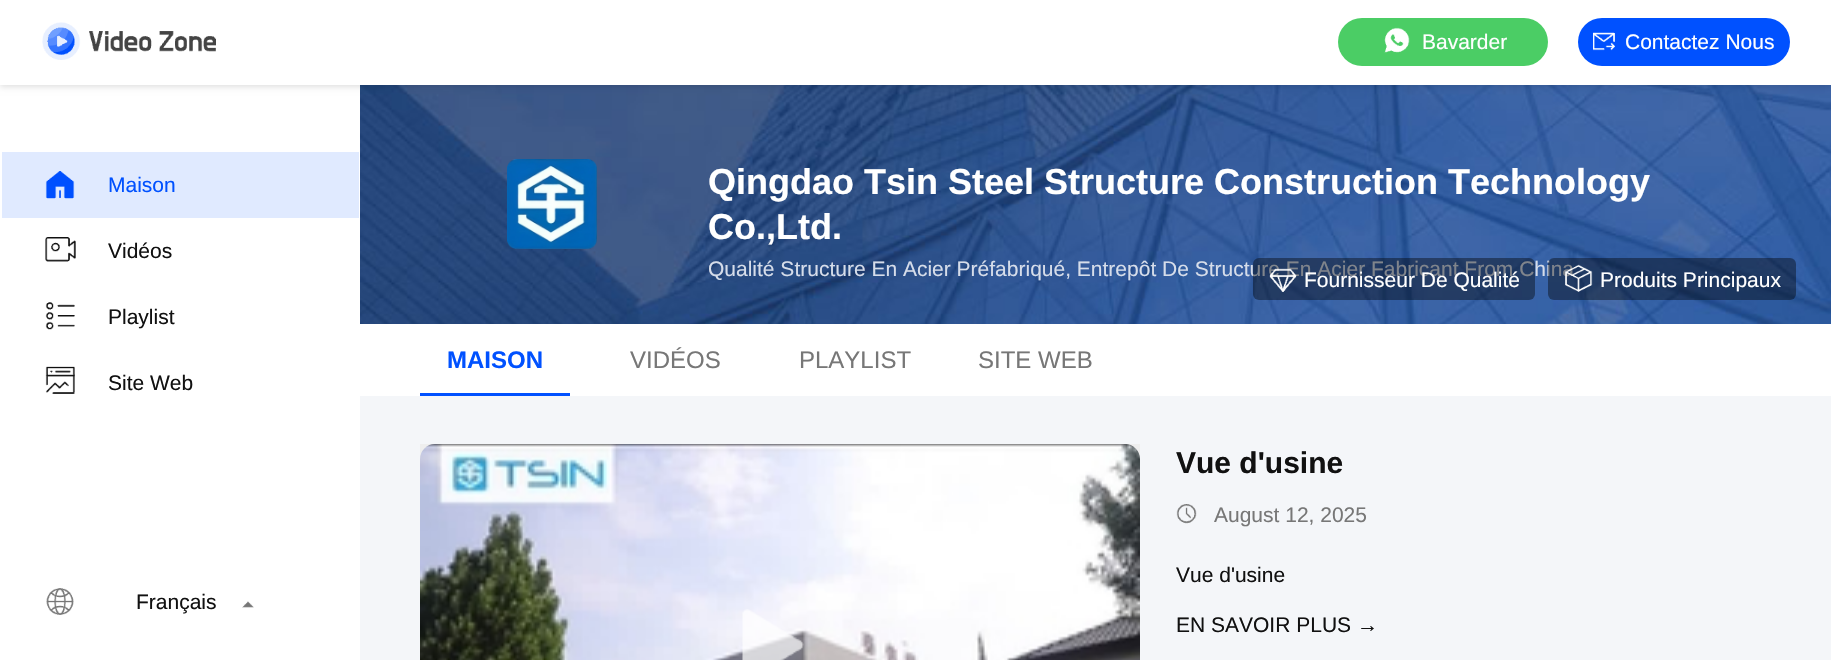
#include "include/core/SkBlurTypes.h"
#include "include/core/SkCanvas.h"
#include "include/core/SkData.h"
#include "include/core/SkFont.h"
#include "include/core/SkFontMgr.h"
#include "include/core/SkImage.h"
#include "include/core/SkMaskFilter.h"
#include "include/core/SkPaint.h"
#include "include/core/SkPathBuilder.h"
#include "include/core/SkTextBlob.h"
#include "include/effects/SkDashPathEffect.h"
#include "include/effects/SkGradientShader.h"
#include "include/utils/SkParsePath.h"

extern sk_sp<SkFontMgr> fontMgr;

static SkFont font(const char* family, int weight, float size, bool italic = false) {
    SkFontStyle style(weight, SkFontStyle::kNormal_Width,
        italic ? SkFontStyle::kItalic_Slant : SkFontStyle::kUpright_Slant);
    SkFont result(fontMgr->matchFamilyStyle(family, style), size);
    result.setSubpixel(true);
    return result;
}

static void drawLabel(SkCanvas* canvas, const char* s, float x, float y, const SkFont& font, SkColor color) {
    SkPaint ink(SkColor4f::FromColor(color));
    ink.setAntiAlias(true);
    canvas->drawString(s, x, y, font, ink);
}

static void fillRect(SkCanvas* canvas, float x, float y, float w, float h, SkColor color) {
    SkPaint ink(SkColor4f::FromColor(color));
    ink.setAntiAlias(true);
    canvas->drawRect(SkRect::MakeXYWH(x, y, w, h), ink);
}

static void fillRRect(SkCanvas* canvas, float x, float y, float w, float h, float radius, SkColor color) {
    SkPaint ink(SkColor4f::FromColor(color));
    ink.setAntiAlias(true);
    canvas->drawRoundRect(SkRect::MakeXYWH(x, y, w, h), radius, radius, ink);
}

static void drawPhoto(SkCanvas* canvas, const char* path, float x, float y, float w, float h) {
    auto image = SkImages::DeferredFromEncodedData(SkData::MakeFromFileName(path));
    canvas->drawImageRect(image, SkRect::MakeXYWH(x, y, w, h), SkSamplingOptions());
}

void draw(SkCanvas* canvas) {
    SkPaint paint;
    paint.setAntiAlias(true);
    canvas->clear(0xFFFFFFFF);
    drawPhoto(canvas, "assets/img10.png", 360, 85, 1471, 239);
    paint.setColor(0x1F000000);
    paint.setMaskFilter(SkMaskFilter::MakeBlur(kNormal_SkBlurStyle, 3));
    canvas->drawRect(SkRect::MakeXYWH(0, 3, 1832, 84), paint);
    paint.setMaskFilter(nullptr);
    fillRect(canvas, 0, 0, 1831, 85, 0xFFFFFFFF);
    drawPhoto(canvas, "assets/img1.png", 42, 22, 174, 38);
    fillRRect(canvas, 1338, 18, 210, 48, 24, 0xFF4BCD65);
    drawPhoto(canvas, "assets/img2.png", 1384, 27, 26, 26);
    SkFont font1 = font("Liberation Sans", 400, 21);
    drawLabel(canvas, "Bavarder", 1422, 49, font1, 0xFFFFFFFF);
    fillRRect(canvas, 1578, 18, 212, 48, 24, 0xFF0051FF);
    drawPhoto(canvas, "assets/img3.png", 1593, 32, 22, 19);
    drawLabel(canvas, "Contactez Nous", 1625, 49, font1, 0xFFFFFFFF);
    fillRect(canvas, 2, 152, 357, 66, 0xFFE0EAFF);
    drawPhoto(canvas, "assets/img4.png", 45, 171, 30, 28);
    drawLabel(canvas, "Maison", 108, 192, font1, 0xFF0051FF);
    drawPhoto(canvas, "assets/img5.png", 45, 237, 31, 25);
    drawLabel(canvas, "Vidéos", 108, 258, font1, 0xFF111111);
    drawPhoto(canvas, "assets/img6.png", 45, 302, 30, 28);
    drawLabel(canvas, "Playlist", 108, 324, font1, 0xFF111111);
    drawPhoto(canvas, "assets/img7.png", 45, 366, 30, 28);
    drawLabel(canvas, "Site Web", 108, 390, font1, 0xFF111111);
    drawPhoto(canvas, "assets/img8.png", 46, 588, 28, 27);
    drawLabel(canvas, "Français", 136, 609, font1, 0xFF111111);
    drawPhoto(canvas, "assets/img9.png", 242, 601, 12, 7);
    fillRect(canvas, 360, 396, 1471, 264, 0xFFF4F6F9);
    drawPhoto(canvas, "assets/img11.png", 507, 159, 90, 90);
    SkFont font2 = font("Liberation Sans", 700, 36);
    drawLabel(canvas, "Qingdao Tsin Steel Structure Construction Technology", 708, 194, font2, 0xFFFFFFFF);
    drawLabel(canvas, "Co.,Ltd.", 708, 239, font2, 0xFFFFFFFF);
    drawLabel(canvas, "Qualité Structure En Acier Préfabriqué, Entrepôt De Structure En Acier Fabricant From China", 708, 276, font1, 0xFFD6DDEA);
    fillRRect(canvas, 1253, 258, 282, 42, 6, 0x66000000);
    drawPhoto(canvas, "assets/img12.png", 1269, 268, 28, 24);
    drawLabel(canvas, "Fournisseur De Qualité", 1304, 287, font1, 0xFFFFFFFF);
    fillRRect(canvas, 1548, 258, 248, 42, 6, 0x66000000);
    drawPhoto(canvas, "assets/img13.png", 1565, 264, 28, 28);
    drawLabel(canvas, "Produits Principaux", 1600, 287, font1, 0xFFFFFFFF);
    SkFont font3 = font("Liberation Sans", 700, 24);
    drawLabel(canvas, "MAISON", 447, 368, font3, 0xFF0051FF);
    fillRect(canvas, 420, 393, 150, 3, 0xFF0051FF);
    SkFont font4 = font("Liberation Sans", 400, 24);
    drawLabel(canvas, "VIDÉOS", 630, 368, font4, 0xFF777777);
    drawLabel(canvas, "PLAYLIST", 799, 368, font4, 0xFF777777);
    drawLabel(canvas, "SITE WEB", 978, 368, font4, 0xFF777777);
    fillRect(canvas, 420, 444, 720, 15, 0xFFEEEEEE);
    drawPhoto(canvas, "assets/img14.png", 420, 444, 720, 216);
    drawPhoto(canvas, "assets/img15.png", 742, 609, 62, 51);
    SkFont font5 = font("Liberation Sans", 700, 30);
    drawLabel(canvas, "Vue d'usine", 1176, 473, font5, 0xFF111111);
    drawPhoto(canvas, "assets/img16.png", 1176, 504, 21, 20);
    drawLabel(canvas, "August 12, 2025", 1214, 522, font1, 0xFF777777);
    drawLabel(canvas, "Vue d'usine", 1176, 582, font1, 0xFF111111);
    drawLabel(canvas, "EN SAVOIR PLUS →", 1176, 632, font1, 0xFF111111);
}
